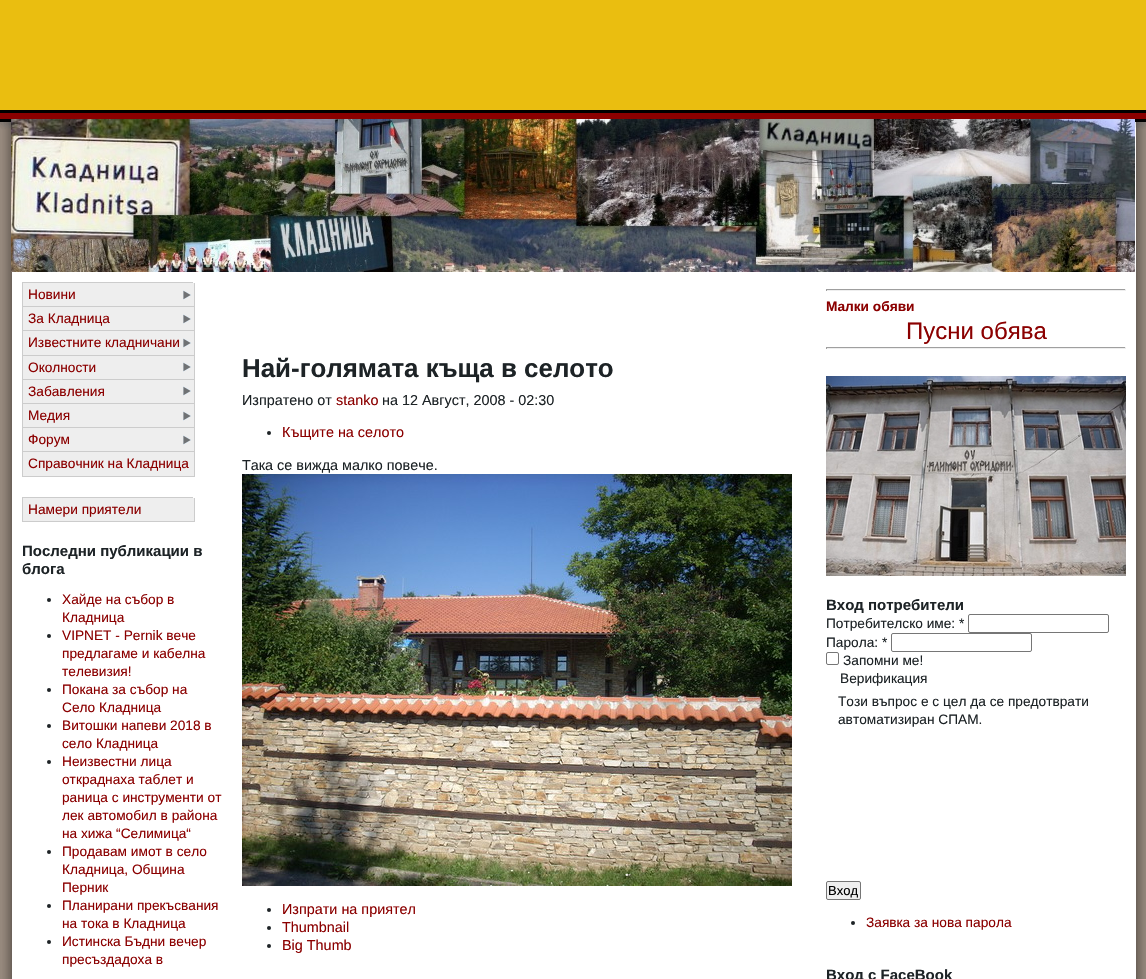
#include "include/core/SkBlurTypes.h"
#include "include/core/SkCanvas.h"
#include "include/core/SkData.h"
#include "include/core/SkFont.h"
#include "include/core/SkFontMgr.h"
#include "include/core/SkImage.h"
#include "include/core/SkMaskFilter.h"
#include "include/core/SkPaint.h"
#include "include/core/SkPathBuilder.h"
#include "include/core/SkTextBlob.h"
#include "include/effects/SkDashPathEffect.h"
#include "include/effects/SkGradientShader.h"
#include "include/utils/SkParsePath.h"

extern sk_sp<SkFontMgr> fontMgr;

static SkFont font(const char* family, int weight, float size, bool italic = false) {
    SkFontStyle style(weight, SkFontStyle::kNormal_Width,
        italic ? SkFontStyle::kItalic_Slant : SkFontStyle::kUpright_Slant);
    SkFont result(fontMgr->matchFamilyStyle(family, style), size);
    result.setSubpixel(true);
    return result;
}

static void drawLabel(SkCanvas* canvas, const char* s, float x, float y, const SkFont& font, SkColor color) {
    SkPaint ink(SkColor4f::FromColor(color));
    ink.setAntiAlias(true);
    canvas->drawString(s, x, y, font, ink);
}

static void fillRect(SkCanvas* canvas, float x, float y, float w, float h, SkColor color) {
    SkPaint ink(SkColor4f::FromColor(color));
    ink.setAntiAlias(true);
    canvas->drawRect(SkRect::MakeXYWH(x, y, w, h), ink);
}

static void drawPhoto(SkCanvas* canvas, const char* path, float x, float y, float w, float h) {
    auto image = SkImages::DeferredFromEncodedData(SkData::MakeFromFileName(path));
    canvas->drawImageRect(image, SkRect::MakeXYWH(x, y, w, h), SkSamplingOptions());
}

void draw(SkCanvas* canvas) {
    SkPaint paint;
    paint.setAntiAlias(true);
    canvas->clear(0xFFEABE10);
    fillRect(canvas, 0, 113, 1146, 6, 0xFF8B0000);
    fillRect(canvas, 0, 110, 1146, 3, 0xFF000000);
    fillRect(canvas, 0, 119, 1146, 3, 0xFF000000);
    drawPhoto(canvas, "assets/img3.png", 0, 122, 12, 857);
    fillRect(canvas, 12, 128, 1124, 851, 0xFFFFFFFF);
    drawPhoto(canvas, "assets/img1.png", 11, 119, 1124, 153);
    drawPhoto(canvas, "assets/img2.png", 1136, 122, 10, 857);
    drawPhoto(canvas, "assets/img4.png", 1135, 122, 1, 6);
    fillRect(canvas, 22, 282, 171, 1, 0xFFCCCCCC);
    fillRect(canvas, 23, 283, 171, 23, 0xFFEEEEEE);
    drawPhoto(canvas, "assets/img5.png", 183, 290, 8, 10);
    fillRect(canvas, 194, 283, 1, 194, 0xFFCCCCCC);
    fillRect(canvas, 22, 306, 173, 1, 0xFFCCCCCC);
    fillRect(canvas, 22, 283, 1, 24, 0xFFCCCCCC);
    SkFont font1 = font("Liberation Sans", 400, 13.7f);
    drawLabel(canvas, "Новини", 28, 299, font1, 0xFF8B0000);
    fillRect(canvas, 23, 307, 171, 23, 0xFFEEEEEE);
    drawPhoto(canvas, "assets/img5.png", 183, 314, 8, 10);
    fillRect(canvas, 22, 330, 173, 1, 0xFFCCCCCC);
    fillRect(canvas, 22, 307, 1, 24, 0xFFCCCCCC);
    drawLabel(canvas, "За Кладница", 28, 323, font1, 0xFF8B0000);
    fillRect(canvas, 23, 331, 171, 24, 0xFFEEEEEE);
    drawPhoto(canvas, "assets/img5.png", 183, 338, 8, 10);
    fillRect(canvas, 22, 355, 173, 1, 0xFFCCCCCC);
    fillRect(canvas, 22, 331, 1, 25, 0xFFCCCCCC);
    drawLabel(canvas, "Известните кладничани", 28, 347, font1, 0xFF8B0000);
    fillRect(canvas, 23, 356, 171, 23, 0xFFEEEEEE);
    drawPhoto(canvas, "assets/img5.png", 183, 362, 8, 10);
    fillRect(canvas, 22, 379, 173, 1, 0xFFCCCCCC);
    fillRect(canvas, 22, 356, 1, 24, 0xFFCCCCCC);
    drawLabel(canvas, "Околности", 28, 372, font1, 0xFF8B0000);
    fillRect(canvas, 23, 380, 171, 23, 0xFFEEEEEE);
    drawPhoto(canvas, "assets/img5.png", 183, 386, 8, 10);
    fillRect(canvas, 22, 403, 173, 1, 0xFFCCCCCC);
    fillRect(canvas, 22, 380, 1, 24, 0xFFCCCCCC);
    drawLabel(canvas, "Забавления", 28, 396, font1, 0xFF8B0000);
    fillRect(canvas, 23, 404, 171, 23, 0xFFEEEEEE);
    drawPhoto(canvas, "assets/img5.png", 183, 411, 8, 10);
    fillRect(canvas, 22, 427, 173, 1, 0xFFCCCCCC);
    fillRect(canvas, 22, 404, 1, 24, 0xFFCCCCCC);
    drawLabel(canvas, "Медия", 28, 420, font1, 0xFF8B0000);
    fillRect(canvas, 23, 428, 171, 23, 0xFFEEEEEE);
    drawPhoto(canvas, "assets/img5.png", 183, 435, 8, 10);
    fillRect(canvas, 22, 451, 173, 1, 0xFFCCCCCC);
    fillRect(canvas, 22, 428, 1, 24, 0xFFCCCCCC);
    drawLabel(canvas, "Форум", 28, 444, font1, 0xFF8B0000);
    fillRect(canvas, 23, 452, 171, 24, 0xFFEEEEEE);
    fillRect(canvas, 22, 476, 173, 1, 0xFFCCCCCC);
    fillRect(canvas, 22, 452, 1, 25, 0xFFCCCCCC);
    drawLabel(canvas, "Справочник на Кладница", 28, 468, font1, 0xFF8B0000);
    fillRect(canvas, 22, 497, 171, 1, 0xFFCCCCCC);
    fillRect(canvas, 23, 498, 171, 23, 0xFFEEEEEE);
    fillRect(canvas, 194, 498, 1, 24, 0xFFCCCCCC);
    fillRect(canvas, 22, 521, 173, 1, 0xFFCCCCCC);
    fillRect(canvas, 22, 498, 1, 24, 0xFFCCCCCC);
    drawLabel(canvas, "Намери приятели", 28, 514, font1, 0xFF8B0000);
    SkFont font2 = font("Liberation Sans", 700, 15);
    drawLabel(canvas, "Последни публикации в", 22, 556, font2, 0xFF1D2326);
    drawLabel(canvas, "блога", 22, 574, font2, 0xFF1D2326);
    paint.setColor(0xFF1D2326);
    canvas->drawCircle(49, 600, 2, paint);
    drawLabel(canvas, "Хайде на събор в", 62, 604, font1, 0xFF8B0000);
    drawLabel(canvas, "Кладница", 62, 622, font1, 0xFF8B0000);
    canvas->drawCircle(49, 636, 2, paint);
    drawLabel(canvas, "VIPNET - Pernik вече", 62, 640, font1, 0xFF8B0000);
    drawLabel(canvas, "предлагаме и кабелна", 62, 658, font1, 0xFF8B0000);
    drawLabel(canvas, "телевизия!", 62, 676, font1, 0xFF8B0000);
    canvas->drawCircle(49, 690, 2, paint);
    drawLabel(canvas, "Покана за събор на", 62, 694, font1, 0xFF8B0000);
    drawLabel(canvas, "Село Кладница", 62, 712, font1, 0xFF8B0000);
    canvas->drawCircle(49, 726, 2, paint);
    drawLabel(canvas, "Витошки напеви 2018 в", 62, 730, font1, 0xFF8B0000);
    drawLabel(canvas, "село Кладница", 62, 748, font1, 0xFF8B0000);
    canvas->drawCircle(49, 762, 2, paint);
    drawLabel(canvas, "Неизвестни лица", 62, 766, font1, 0xFF8B0000);
    drawLabel(canvas, "откраднаха таблет и", 62, 784, font1, 0xFF8B0000);
    drawLabel(canvas, "раница с инструменти от", 62, 802, font1, 0xFF8B0000);
    drawLabel(canvas, "лек автомобил в района", 62, 820, font1, 0xFF8B0000);
    drawLabel(canvas, "на хижа “Селимица“", 62, 838, font1, 0xFF8B0000);
    canvas->drawCircle(49, 852, 2, paint);
    drawLabel(canvas, "Продавам имот в село", 62, 856, font1, 0xFF8B0000);
    drawLabel(canvas, "Кладница, Община", 62, 874, font1, 0xFF8B0000);
    drawLabel(canvas, "Перник", 62, 892, font1, 0xFF8B0000);
    canvas->drawCircle(49, 906, 2, paint);
    drawLabel(canvas, "Планирани прекъсвания", 62, 910, font1, 0xFF8B0000);
    drawLabel(canvas, "на тока в Кладница", 62, 928, font1, 0xFF8B0000);
    canvas->drawCircle(49, 942, 2, paint);
    drawLabel(canvas, "Истинска Бъдни вечер", 62, 946, font1, 0xFF8B0000);
    drawLabel(canvas, "пресъздадоха в", 62, 964, font1, 0xFF8B0000);
    SkFont font3 = font("Liberation Sans", 700, 25.9f);
    drawLabel(canvas, "Най-голямата къща в селото", 242, 377, font3, 0xFF1D2326);
    SkFont font4 = font("Liberation Sans", 400, 14.4f);
    drawLabel(canvas, "Изпратено от", 242, 405, font4, 0xFF1D2326);
    drawLabel(canvas, "stanko", 336, 405, font4, 0xFF8B0000);
    drawLabel(canvas, "на 12 Август, 2008 - 02:30", 382, 405, font4, 0xFF1D2326);
    canvas->drawCircle(269, 433, 2, paint);
    drawLabel(canvas, "Къщите на селото", 282, 437, font4, 0xFF8B0000);
    drawLabel(canvas, "Така се вижда малко повече.", 242, 470, font4, 0xFF1D2326);
    drawPhoto(canvas, "assets/img6.png", 242, 474, 550, 412);
    canvas->drawCircle(269, 910, 2, paint);
    drawLabel(canvas, "Изпрати на приятел", 282, 914, font4, 0xFF8B0000);
    canvas->drawCircle(269, 928, 2, paint);
    drawLabel(canvas, "Thumbnail", 282, 932, font4, 0xFF8B0000);
    canvas->drawCircle(269, 946, 2, paint);
    drawLabel(canvas, "Big Thumb", 282, 950, font4, 0xFF8B0000);
    fillRect(canvas, 826, 289, 300, 1, 0xFF9F9F9F);
    fillRect(canvas, 1125, 289, 1, 2, 0xFFEEEEEE);
    fillRect(canvas, 826, 290, 300, 1, 0xFFEEEEEE);
    fillRect(canvas, 826, 289, 1, 2, 0xFF9F9F9F);
    SkFont font5 = font("Liberation Sans", 700, 13.7f);
    drawLabel(canvas, "Малки обяви", 826, 311, font5, 0xFF8B0000);
    SkFont font6 = font("Liberation Sans", 400, 24);
    drawLabel(canvas, "Пусни обява", 906, 339, font6, 0xFF8B0000);
    fillRect(canvas, 826, 347, 300, 1, 0xFF9F9F9F);
    fillRect(canvas, 1125, 347, 1, 2, 0xFFEEEEEE);
    fillRect(canvas, 826, 348, 300, 1, 0xFFEEEEEE);
    fillRect(canvas, 826, 347, 1, 2, 0xFF9F9F9F);
    drawPhoto(canvas, "assets/img7.png", 826, 376, 300, 200);
    drawLabel(canvas, "Вход потребители", 826, 610, font2, 0xFF1D2326);
    drawLabel(canvas, "Потребителско име: *", 826, 628, font1, 0xFF1D2326);
    paint.setStroke(true);
    paint.setStrokeWidth(1);
    paint.setColor(0xFF767676);
    canvas->drawRoundRect(SkRect::MakeXYWH(968.5f, 614.5f, 140, 18), 1.5f, 1.5f, paint);
    drawLabel(canvas, "Парола: *", 826, 647, font1, 0xFF1D2326);
    canvas->drawRoundRect(SkRect::MakeXYWH(891.5f, 633.5f, 140, 18), 1.5f, 1.5f, paint);
    canvas->drawRoundRect(SkRect::MakeXYWH(826.5f, 652.5f, 12, 12), 1.5f, 1.5f, paint);
    drawLabel(canvas, "Запомни ме!", 843, 665, font1, 0xFF1D2326);
    drawLabel(canvas, "Верификация", 840, 683, font1, 0xFF1D2326);
    drawLabel(canvas, "Този въпрос е с цел да се предотврати", 838, 706, font1, 0xFF1D2326);
    drawLabel(canvas, "автоматизиран СПАМ.", 838, 724, font1, 0xFF1D2326);
    paint.setStroke(false);
    paint.setColor(0xFFEFEFEF);
    canvas->drawRoundRect(SkRect::MakeXYWH(826.5f, 881.5f, 34, 18), 1.5f, 1.5f, paint);
    paint.setStroke(true);
    paint.setColor(0xFF767676);
    canvas->drawRoundRect(SkRect::MakeXYWH(826.5f, 881.5f, 34, 18), 1.5f, 1.5f, paint);
    SkFont font7 = font("Liberation Sans", 400, 13);
    drawLabel(canvas, "Вход", 828, 895, font7, 0xFF000000);
    paint.setStroke(false);
    paint.setColor(0xFF1D2326);
    canvas->drawCircle(853, 923, 2, paint);
    drawLabel(canvas, "Заявка за нова парола", 866, 927, font1, 0xFF8B0000);
    drawLabel(canvas, "Вход с FaceBook", 826, 980, font2, 0xFF1D2326);
}
